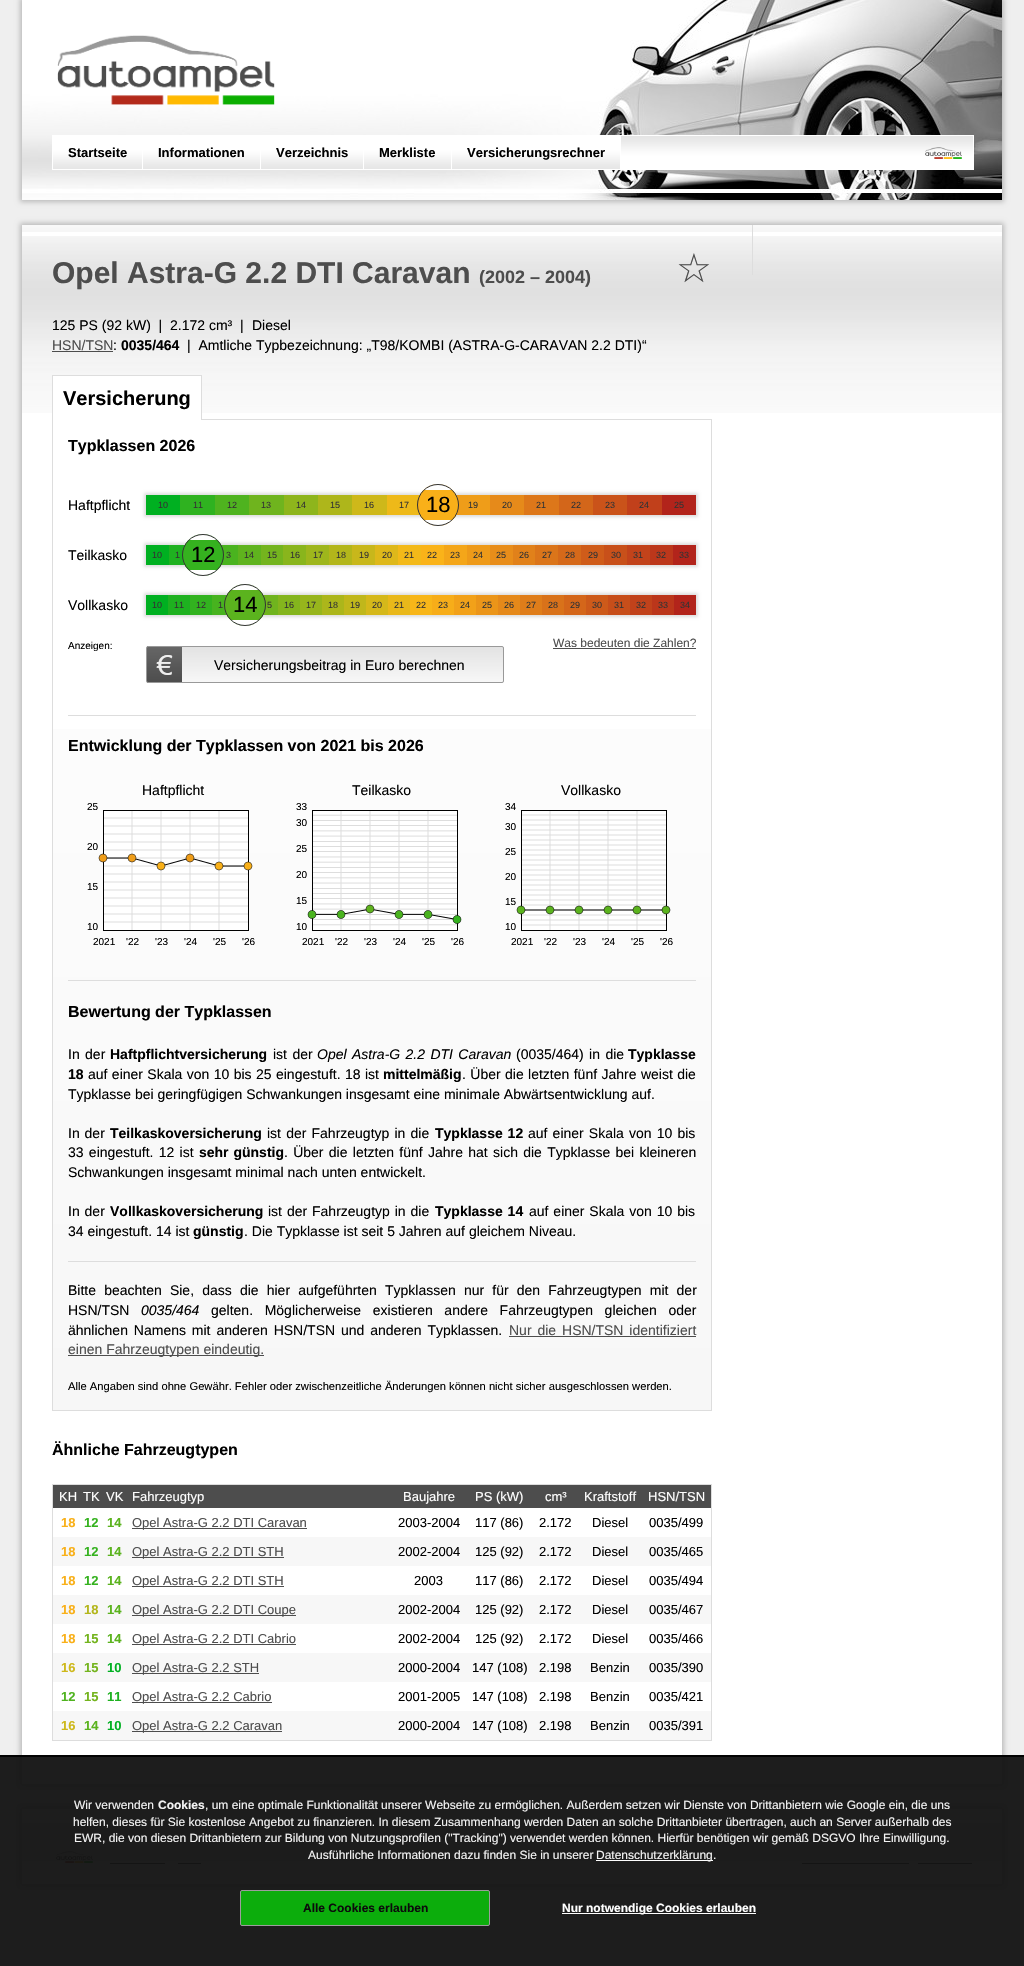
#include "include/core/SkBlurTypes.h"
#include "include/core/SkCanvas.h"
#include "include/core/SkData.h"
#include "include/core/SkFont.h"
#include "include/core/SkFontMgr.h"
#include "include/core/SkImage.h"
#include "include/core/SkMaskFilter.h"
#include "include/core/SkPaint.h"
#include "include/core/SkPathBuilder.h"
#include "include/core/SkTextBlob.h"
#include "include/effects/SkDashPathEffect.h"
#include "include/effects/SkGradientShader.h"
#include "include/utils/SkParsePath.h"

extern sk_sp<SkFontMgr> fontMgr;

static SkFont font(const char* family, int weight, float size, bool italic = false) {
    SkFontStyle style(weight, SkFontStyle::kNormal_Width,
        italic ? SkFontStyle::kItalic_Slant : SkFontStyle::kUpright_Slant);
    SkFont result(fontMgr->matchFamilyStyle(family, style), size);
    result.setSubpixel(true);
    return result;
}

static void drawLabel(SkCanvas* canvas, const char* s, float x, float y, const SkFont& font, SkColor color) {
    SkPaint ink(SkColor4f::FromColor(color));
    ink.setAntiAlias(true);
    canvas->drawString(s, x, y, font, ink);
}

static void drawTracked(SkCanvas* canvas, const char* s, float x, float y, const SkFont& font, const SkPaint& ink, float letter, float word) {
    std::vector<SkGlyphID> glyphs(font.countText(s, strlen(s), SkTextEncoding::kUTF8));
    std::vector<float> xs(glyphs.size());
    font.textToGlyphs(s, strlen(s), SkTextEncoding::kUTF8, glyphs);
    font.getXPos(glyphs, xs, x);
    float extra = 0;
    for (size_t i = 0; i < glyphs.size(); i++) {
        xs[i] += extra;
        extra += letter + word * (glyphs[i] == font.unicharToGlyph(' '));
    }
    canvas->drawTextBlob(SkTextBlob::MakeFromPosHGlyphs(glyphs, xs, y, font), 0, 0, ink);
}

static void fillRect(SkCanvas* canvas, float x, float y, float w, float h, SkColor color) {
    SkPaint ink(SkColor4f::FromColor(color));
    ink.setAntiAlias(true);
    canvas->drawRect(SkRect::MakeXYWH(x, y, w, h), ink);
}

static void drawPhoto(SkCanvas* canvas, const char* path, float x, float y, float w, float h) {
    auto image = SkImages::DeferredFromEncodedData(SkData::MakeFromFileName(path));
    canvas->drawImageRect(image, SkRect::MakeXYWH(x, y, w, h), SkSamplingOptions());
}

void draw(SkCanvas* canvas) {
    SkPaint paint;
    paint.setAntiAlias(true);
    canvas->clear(0xFFEFEFEF);
    paint.setColor(0xFFBBBBBB);
    paint.setMaskFilter(SkMaskFilter::MakeBlur(kNormal_SkBlurStyle, 2.5f));
    canvas->drawRect(SkRect::MakeXYWH(20, -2, 984, 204), paint);
    paint.setMaskFilter(nullptr);
    drawPhoto(canvas, "assets/img1.png", 22, 0, 980, 200);
    drawPhoto(canvas, "assets/img2.png", 57, 35, 218, 70);
    drawPhoto(canvas, "assets/img3.png", 621, 136, 352, 33);
    paint.setStroke(true);
    paint.setStrokeWidth(1);
    paint.setColor(0xFFFFFFFF);
    canvas->drawRect(SkRect::MakeXYWH(52.5f, 135.5f, 921, 34), paint);
    drawPhoto(canvas, "assets/img4.png", 53, 136, 89, 33);
    fillRect(canvas, 142, 136, 1, 33, 0xFFFFFFFF);
    SkFont font1 = font("Liberation Sans", 700, 13);
    drawLabel(canvas, "Startseite", 68, 157, font1, 0xFF000000);
    drawPhoto(canvas, "assets/img5.png", 143, 136, 117, 33);
    fillRect(canvas, 260, 136, 1, 33, 0xFFFFFFFF);
    drawLabel(canvas, "Informationen", 158, 157, font1, 0xFF000000);
    drawPhoto(canvas, "assets/img6.png", 261, 136, 102, 33);
    fillRect(canvas, 363, 136, 1, 33, 0xFFFFFFFF);
    drawLabel(canvas, "Verzeichnis", 276, 157, font1, 0xFF000000);
    drawPhoto(canvas, "assets/img7.png", 364, 136, 87, 33);
    fillRect(canvas, 451, 136, 1, 33, 0xFFFFFFFF);
    drawLabel(canvas, "Merkliste", 379, 157, font1, 0xFF000000);
    drawPhoto(canvas, "assets/img8.png", 452, 136, 168, 33);
    fillRect(canvas, 620, 136, 1, 33, 0xFFFFFFFF);
    drawLabel(canvas, "Versicherungsrechner", 467, 157, font1, 0xFF000000);
    drawPhoto(canvas, "assets/img9.png", 925, 147, 37, 12);
    paint.setStroke(false);
    paint.setColor(0xFFBBBBBB);
    paint.setMaskFilter(SkMaskFilter::MakeBlur(kNormal_SkBlurStyle, 2.5f));
    canvas->drawRect(SkRect::MakeXYWH(20, 223, 984, 1563), paint);
    paint.setMaskFilter(nullptr);
    fillRect(canvas, 22, 413, 980, 1371, 0xFFFFFFFF);
    drawPhoto(canvas, "assets/img10.png", 22, 225, 980, 188);
    SkFont font2 = font("Liberation Sans", 700, 30);
    drawLabel(canvas, "Opel Astra-G 2.2 DTI Caravan", 52, 283, font2, 0xFF4D4D4D);
    SkFont font3 = font("Liberation Sans", 700, 18);
    drawLabel(canvas, "(2002 – 2004)", 479, 283, font3, 0xFF4D4D4D);
    SkFont font4 = font("DejaVu Sans", 400, 40);
    drawLabel(canvas, "☆", 676, 282, font4, 0xFF4D4D4D);
    SkFont font5 = font("Liberation Sans", 400, 14);
    drawLabel(canvas, "125 PS (92 kW)  |", 52, 330, font5, 0xFF000000);
    drawLabel(canvas, "2.172 cm³", 170, 330, font5, 0xFF000000);
    drawLabel(canvas, "|", 240, 330, font5, 0xFF000000);
    drawLabel(canvas, "Diesel", 252, 330, font5, 0xFF000000);
    drawLabel(canvas, "HSN/TSN", 52, 350, font5, 0xFF4D4D4D);
    fillRect(canvas, 52, 351, 61, 1, 0xFF4D4D4D);
    drawLabel(canvas, ":", 113, 350, font5, 0xFF000000);
    SkFont font6 = font("Liberation Sans", 700, 14);
    drawLabel(canvas, "0035/464", 121, 350, font6, 0xFF000000);
    drawLabel(canvas, "|  Amtliche Typbezeichnung: „T98/KOMBI (ASTRA-G-CARAVAN 2.2 DTI)“", 187, 350, font5, 0xFF000000);
    fillRect(canvas, 53, 376, 148, 37, 0xFFFFFFFF);
    fillRect(canvas, 52, 375, 150, 1, 0xFFDDDDDD);
    fillRect(canvas, 201, 375, 1, 45, 0xFFDDDDDD);
    fillRect(canvas, 52, 375, 1, 45, 0xFFDDDDDD);
    SkFont font7 = font("Liberation Sans", 700, 20);
    drawLabel(canvas, "Versicherung", 63, 405, font7, 0xFF000000);
    fillRect(canvas, 202, 419, 510, 1, 0xFFDDDDDD);
    {
        const SkColor colors[] = {0xFFFFFFFF, 0xFFF7F7F7};
        const float stops[] = {0, 1};
        const SkPoint ends[] = {{382, 420}, {382, 1410}};
        paint.setShader(SkGradientShader::MakeLinear(ends, colors, stops, 2, SkTileMode::kClamp));
        paint.setAlpha(255);
    }
    canvas->drawRect(SkRect::MakeXYWH(53, 729, 658, 681), paint);
    fillRect(canvas, 711, 420, 1, 991, 0xFFDDDDDD);
    fillRect(canvas, 52, 1410, 660, 1, 0xFFDDDDDD);
    fillRect(canvas, 52, 420, 1, 991, 0xFFDDDDDD);
    SkFont font8 = font("Liberation Sans", 700, 16);
    drawLabel(canvas, "Typklassen 2026", 68, 451, font8, 0xFF000000);
    drawLabel(canvas, "Haftpflicht", 68, 510, font5, 0xFF000000);
    paint.setShader(nullptr);
    paint.setColor(0xFFDDDDDD);
    paint.setMaskFilter(SkMaskFilter::MakeBlur(kNormal_SkBlurStyle, 1.5f));
    canvas->drawRect(SkRect::MakeXYWH(144, 493, 554, 24), paint);
    paint.setMaskFilter(nullptr);
    fillRect(canvas, 146, 495, 34, 20, 0xFF00B021);
    SkFont font9 = font("Liberation Sans", 400, 9);
    drawLabel(canvas, "10", 158, 508, font9, 0xFF333333);
    fillRect(canvas, 180, 495, 35, 20, 0xFF2FB220);
    drawLabel(canvas, "11", 193, 508, font9, 0xFF333333);
    fillRect(canvas, 215, 495, 34, 20, 0xFF4FB31F);
    drawLabel(canvas, "12", 227, 508, font9, 0xFF333333);
    fillRect(canvas, 249, 495, 35, 20, 0xFF6FB41E);
    drawLabel(canvas, "13", 261, 508, font9, 0xFF333333);
    fillRect(canvas, 284, 495, 34, 20, 0xFF8EB51C);
    drawLabel(canvas, "14", 296, 508, font9, 0xFF333333);
    fillRect(canvas, 318, 495, 34, 20, 0xFFAEB61B);
    drawLabel(canvas, "15", 330, 508, font9, 0xFF333333);
    fillRect(canvas, 352, 495, 35, 20, 0xFFCEB81A);
    drawLabel(canvas, "16", 364, 508, font9, 0xFF333333);
    fillRect(canvas, 387, 495, 33, 20, 0xFFEEB919);
    drawLabel(canvas, "17", 399, 508, font9, 0xFF333333);
    fillRect(canvas, 456, 495, 34, 20, 0xFFEF9D19);
    paint.setColor(0xFFF9B019);
    canvas->drawCircle(438, 505, 21, paint);
    drawPhoto(canvas, "assets/img11.png", 423, 484, 30, 42);
    paint.setStroke(true);
    paint.setColor(0xFF333333);
    canvas->drawCircle(438, 505, 20.5f, paint);
    SkFont font10 = font("Liberation Sans", 400, 22);
    drawLabel(canvas, "18", 426, 512, font10, 0xFF000000);
    drawLabel(canvas, "19", 468, 508, font9, 0xFF333333);
    fillRect(canvas, 490, 495, 34, 20, 0xFFE68A1A);
    drawLabel(canvas, "20", 502, 508, font9, 0xFF333333);
    fillRect(canvas, 524, 495, 35, 20, 0xFFDD771A);
    drawLabel(canvas, "21", 536, 508, font9, 0xFF333333);
    fillRect(canvas, 559, 495, 34, 20, 0xFFD3661A);
    drawLabel(canvas, "22", 571, 508, font9, 0xFF333333);
    fillRect(canvas, 593, 495, 34, 20, 0xFFCA531A);
    drawLabel(canvas, "23", 605, 508, font9, 0xFF333333);
    fillRect(canvas, 627, 495, 35, 20, 0xFFC1401B);
    drawLabel(canvas, "24", 639, 508, font9, 0xFF333333);
    fillRect(canvas, 662, 495, 34, 20, 0xFFB2241B);
    drawLabel(canvas, "25", 674, 508, font9, 0xFF333333);
    drawLabel(canvas, "Teilkasko", 68, 560, font5, 0xFF000000);
    paint.setStroke(false);
    paint.setColor(0xFFDDDDDD);
    paint.setMaskFilter(SkMaskFilter::MakeBlur(kNormal_SkBlurStyle, 1.5f));
    canvas->drawRect(SkRect::MakeXYWH(144, 543, 554, 24), paint);
    paint.setMaskFilter(nullptr);
    fillRect(canvas, 146, 545, 23, 20, 0xFF00B021);
    drawLabel(canvas, "10", 152, 558, font9, 0xFF333333);
    fillRect(canvas, 169, 545, 16, 20, 0xFF1FB120);
    drawLabel(canvas, "1", 175, 558, font9, 0xFF333333);
    fillRect(canvas, 221, 545, 17, 20, 0xFF4AB31F);
    paint.setColor(0xFF35B21F);
    canvas->drawCircle(203, 555, 21, paint);
    drawPhoto(canvas, "assets/img12.png", 188, 534, 30, 42);
    paint.setStroke(true);
    paint.setColor(0xFF333333);
    canvas->drawCircle(203, 555, 20.5f, paint);
    drawLabel(canvas, "12", 191, 562, font10, 0xFF000000);
    drawLabel(canvas, "3", 226, 558, font9, 0xFF333333);
    fillRect(canvas, 238, 545, 23, 20, 0xFF5FB31E);
    drawLabel(canvas, "14", 244, 558, font9, 0xFF333333);
    fillRect(canvas, 261, 545, 22, 20, 0xFF74B41E);
    drawLabel(canvas, "15", 267, 558, font9, 0xFF333333);
    fillRect(canvas, 283, 545, 23, 20, 0xFF89B51C);
    drawLabel(canvas, "16", 290, 558, font9, 0xFF333333);
    fillRect(canvas, 306, 545, 23, 20, 0xFF9EB61C);
    drawLabel(canvas, "17", 313, 558, font9, 0xFF333333);
    fillRect(canvas, 329, 545, 23, 20, 0xFFB3B61B);
    drawLabel(canvas, "18", 336, 558, font9, 0xFF333333);
    fillRect(canvas, 352, 545, 23, 20, 0xFFC8B71B);
    drawLabel(canvas, "19", 359, 558, font9, 0xFF333333);
    fillRect(canvas, 375, 545, 23, 20, 0xFFDEB81A);
    drawLabel(canvas, "20", 382, 558, font9, 0xFF333333);
    fillRect(canvas, 398, 545, 23, 20, 0xFFF3B919);
    drawLabel(canvas, "21", 404, 558, font9, 0xFF333333);
    fillRect(canvas, 421, 545, 23, 20, 0xFFFAB319);
    drawLabel(canvas, "22", 427, 558, font9, 0xFF333333);
    fillRect(canvas, 444, 545, 23, 20, 0xFFF4A619);
    drawLabel(canvas, "23", 450, 558, font9, 0xFF333333);
    fillRect(canvas, 467, 545, 23, 20, 0xFFEE9A19);
    drawLabel(canvas, "24", 473, 558, font9, 0xFF333333);
    fillRect(canvas, 490, 545, 23, 20, 0xFFE88D1A);
    drawLabel(canvas, "25", 496, 558, font9, 0xFF333333);
    fillRect(canvas, 513, 545, 22, 20, 0xFFE1811A);
    drawLabel(canvas, "26", 519, 558, font9, 0xFF333333);
    fillRect(canvas, 535, 545, 23, 20, 0xFFDB751A);
    drawLabel(canvas, "27", 542, 558, font9, 0xFF333333);
    fillRect(canvas, 558, 545, 23, 20, 0xFFD5691A);
    drawLabel(canvas, "28", 565, 558, font9, 0xFF333333);
    fillRect(canvas, 581, 545, 23, 20, 0xFFCF5C1A);
    drawLabel(canvas, "29", 588, 558, font9, 0xFF333333);
    fillRect(canvas, 604, 545, 23, 20, 0xFFC8501A);
    drawLabel(canvas, "30", 611, 558, font9, 0xFF333333);
    fillRect(canvas, 627, 545, 23, 20, 0xFFC2431B);
    drawLabel(canvas, "31", 633, 558, font9, 0xFF333333);
    fillRect(canvas, 650, 545, 23, 20, 0xFFBC371B);
    drawLabel(canvas, "32", 656, 558, font9, 0xFF333333);
    fillRect(canvas, 673, 545, 23, 20, 0xFFB2241B);
    drawLabel(canvas, "33", 679, 558, font9, 0xFF333333);
    drawLabel(canvas, "Vollkasko", 68, 610, font5, 0xFF000000);
    paint.setStroke(false);
    paint.setColor(0xFFDDDDDD);
    paint.setMaskFilter(SkMaskFilter::MakeBlur(kNormal_SkBlurStyle, 1.5f));
    canvas->drawRect(SkRect::MakeXYWH(144, 593, 554, 24), paint);
    paint.setMaskFilter(nullptr);
    fillRect(canvas, 146, 595, 22, 20, 0xFF00B021);
    drawLabel(canvas, "10", 152, 608, font9, 0xFF333333);
    fillRect(canvas, 168, 595, 22, 20, 0xFF1EB120);
    drawLabel(canvas, "11", 174, 608, font9, 0xFF333333);
    fillRect(canvas, 190, 595, 22, 20, 0xFF32B21F);
    drawLabel(canvas, "12", 196, 608, font9, 0xFF333333);
    fillRect(canvas, 212, 595, 15, 20, 0xFF47B31F);
    drawLabel(canvas, "1", 218, 608, font9, 0xFF333333);
    fillRect(canvas, 263, 595, 15, 20, 0xFF70B41E);
    paint.setColor(0xFF5BB31E);
    canvas->drawCircle(245, 605, 21, paint);
    drawPhoto(canvas, "assets/img13.png", 230, 584, 30, 42);
    paint.setStroke(true);
    paint.setColor(0xFF333333);
    canvas->drawCircle(245, 605, 20.5f, paint);
    drawLabel(canvas, "14", 233, 612, font10, 0xFF000000);
    drawLabel(canvas, "5", 267, 608, font9, 0xFF333333);
    fillRect(canvas, 278, 595, 22, 20, 0xFF84B51D);
    drawLabel(canvas, "16", 284, 608, font9, 0xFF333333);
    fillRect(canvas, 300, 595, 22, 20, 0xFF97B51C);
    drawLabel(canvas, "17", 306, 608, font9, 0xFF333333);
    fillRect(canvas, 322, 595, 22, 20, 0xFFACB61B);
    drawLabel(canvas, "18", 328, 608, font9, 0xFF333333);
    fillRect(canvas, 344, 595, 22, 20, 0xFFC0B71B);
    drawLabel(canvas, "19", 350, 608, font9, 0xFF333333);
    fillRect(canvas, 366, 595, 22, 20, 0xFFD5B81A);
    drawLabel(canvas, "20", 372, 608, font9, 0xFF333333);
    fillRect(canvas, 388, 595, 22, 20, 0xFFE9B81A);
    drawLabel(canvas, "21", 394, 608, font9, 0xFF333333);
    fillRect(canvas, 410, 595, 22, 20, 0xFFF8B619);
    drawLabel(canvas, "22", 416, 608, font9, 0xFF333333);
    fillRect(canvas, 432, 595, 22, 20, 0xFFF7AD19);
    drawLabel(canvas, "23", 438, 608, font9, 0xFF333333);
    fillRect(canvas, 454, 595, 22, 20, 0xFFF2A119);
    drawLabel(canvas, "24", 460, 608, font9, 0xFF333333);
    fillRect(canvas, 476, 595, 22, 20, 0xFFEB9519);
    drawLabel(canvas, "25", 482, 608, font9, 0xFF333333);
    fillRect(canvas, 498, 595, 22, 20, 0xFFE5891A);
    drawLabel(canvas, "26", 504, 608, font9, 0xFF333333);
    fillRect(canvas, 520, 595, 22, 20, 0xFFDF7D1A);
    drawLabel(canvas, "27", 526, 608, font9, 0xFF333333);
    fillRect(canvas, 542, 595, 22, 20, 0xFFD9721A);
    drawLabel(canvas, "28", 548, 608, font9, 0xFF333333);
    fillRect(canvas, 564, 595, 22, 20, 0xFFD4661A);
    drawLabel(canvas, "29", 570, 608, font9, 0xFF333333);
    fillRect(canvas, 586, 595, 22, 20, 0xFFCD5A1A);
    drawLabel(canvas, "30", 592, 608, font9, 0xFF333333);
    fillRect(canvas, 608, 595, 22, 20, 0xFFC74E1A);
    drawLabel(canvas, "31", 614, 608, font9, 0xFF333333);
    fillRect(canvas, 630, 595, 22, 20, 0xFFC1421B);
    drawLabel(canvas, "32", 636, 608, font9, 0xFF333333);
    fillRect(canvas, 652, 595, 22, 20, 0xFFBB361B);
    drawLabel(canvas, "33", 658, 608, font9, 0xFF333333);
    fillRect(canvas, 674, 595, 22, 20, 0xFFB2241B);
    drawLabel(canvas, "34", 680, 608, font9, 0xFF333333);
    SkFont font11 = font("Liberation Sans", 400, 10);
    drawLabel(canvas, "Anzeigen:", 68, 649, font11, 0xFF000000);
    SkFont font12 = font("Liberation Sans", 400, 12);
    drawLabel(canvas, "Was bedeuten die Zahlen?", 553, 647, font12, 0xFF4D4D4D);
    fillRect(canvas, 553, 648, 143, 1, 0xFF4D4D4D);
    drawPhoto(canvas, "assets/img14.png", 146, 646, 358, 37);
    paint.setColor(0xFF999999);
    canvas->drawRoundRect(SkRect::MakeXYWH(146.5f, 646.5f, 357, 36), 1.5f, 1.5f, paint);
    drawLabel(canvas, "Versicherungsbeitrag in Euro berechnen", 214, 670, font5, 0xFF000000);
    fillRect(canvas, 68, 715, 628, 1, 0xFFDDDDDD);
    drawLabel(canvas, "Entwicklung der Typklassen von 2021 bis 2026", 68, 751, font8, 0xFF000000);
    drawLabel(canvas, "Haftpflicht", 142, 795, font5, 0xFF000000);
    drawLabel(canvas, "Teilkasko", 352, 795, font5, 0xFF000000);
    drawLabel(canvas, "Vollkasko", 561, 795, font5, 0xFF000000);
    drawLabel(canvas, "25", 87, 810, font11, 0xFF000000);
    drawLabel(canvas, "20", 87, 850, font11, 0xFF000000);
    drawPhoto(canvas, "assets/img15.png", 98, 810, 155, 121);
    drawLabel(canvas, "15", 87, 890, font11, 0xFF000000);
    drawLabel(canvas, "10", 87, 930, font11, 0xFF000000);
    drawLabel(canvas, "2021", 93, 945, font11, 0xFF000000);
    drawLabel(canvas, "'22", 126, 945, font11, 0xFF000000);
    drawLabel(canvas, "'23", 155, 945, font11, 0xFF000000);
    drawLabel(canvas, "'24", 184, 945, font11, 0xFF000000);
    drawLabel(canvas, "'25", 213, 945, font11, 0xFF000000);
    drawLabel(canvas, "'26", 242, 945, font11, 0xFF000000);
    drawLabel(canvas, "33", 296, 810, font11, 0xFF000000);
    drawLabel(canvas, "30", 296, 826, font11, 0xFF000000);
    drawPhoto(canvas, "assets/img16.png", 307, 810, 155, 121);
    drawLabel(canvas, "25", 296, 852, font11, 0xFF000000);
    drawLabel(canvas, "20", 296, 878, font11, 0xFF000000);
    drawLabel(canvas, "15", 296, 904, font11, 0xFF000000);
    drawLabel(canvas, "10", 296, 930, font11, 0xFF000000);
    drawLabel(canvas, "2021", 302, 945, font11, 0xFF000000);
    drawLabel(canvas, "'22", 335, 945, font11, 0xFF000000);
    drawLabel(canvas, "'23", 364, 945, font11, 0xFF000000);
    drawLabel(canvas, "'24", 393, 945, font11, 0xFF000000);
    drawLabel(canvas, "'25", 422, 945, font11, 0xFF000000);
    drawLabel(canvas, "'26", 451, 945, font11, 0xFF000000);
    drawLabel(canvas, "34", 505, 810, font11, 0xFF000000);
    drawLabel(canvas, "30", 505, 830, font11, 0xFF000000);
    drawPhoto(canvas, "assets/img17.png", 516, 810, 155, 121);
    drawLabel(canvas, "25", 505, 855, font11, 0xFF000000);
    drawLabel(canvas, "20", 505, 880, font11, 0xFF000000);
    drawLabel(canvas, "15", 505, 905, font11, 0xFF000000);
    drawLabel(canvas, "10", 505, 930, font11, 0xFF000000);
    drawLabel(canvas, "2021", 511, 945, font11, 0xFF000000);
    drawLabel(canvas, "'22", 544, 945, font11, 0xFF000000);
    drawLabel(canvas, "'23", 573, 945, font11, 0xFF000000);
    drawLabel(canvas, "'24", 602, 945, font11, 0xFF000000);
    drawLabel(canvas, "'25", 631, 945, font11, 0xFF000000);
    drawLabel(canvas, "'26", 660, 945, font11, 0xFF000000);
    fillRect(canvas, 68, 980, 628, 1, 0xFFDDDDDD);
    drawLabel(canvas, "Bewertung der Typklassen", 68, 1017, font8, 0xFF000000);
    paint.setStroke(false);
    paint.setColor(0xFF000000);
    drawTracked(canvas, "In der", 68, 1059, font5, paint, 0, 1.5f);
    drawLabel(canvas, "Haftpflichtversicherung", 110, 1059, font6, 0xFF000000);
    drawTracked(canvas, "ist der", 273, 1059, font5, paint, 0, 1.5f);
    SkFont font13 = font("Liberation Sans", 400, 14, true);
    drawTracked(canvas, "Opel Astra-G 2.2 DTI Caravan", 317, 1059, font13, paint, 0, 1.5f);
    drawTracked(canvas, "(0035/464) in die", 516, 1059, font5, paint, 0, 1.5f);
    drawLabel(canvas, "Typklasse", 628, 1059, font6, 0xFF000000);
    drawLabel(canvas, "18", 68, 1079, font6, 0xFF000000);
    drawTracked(canvas, "auf einer Skala von 10 bis 25 eingestuft. 18 ist", 88, 1079, font5, paint, 0, 0.5f);
    drawLabel(canvas, "mittelmäßig", 383, 1079, font6, 0xFF000000);
    drawTracked(canvas, ". Über die letzten fünf Jahre weist die", 462, 1079, font5, paint, 0, 0.5f);
    drawLabel(canvas, "Typklasse bei geringfügigen Schwankungen insgesamt eine minimale Abwärtsentwicklung auf.", 68, 1099, font5, 0xFF000000);
    drawTracked(canvas, "In der", 68, 1138, font5, paint, 0, 1);
    drawLabel(canvas, "Teilkaskoversicherung", 110, 1138, font6, 0xFF000000);
    drawTracked(canvas, "ist der Fahrzeugtyp in die", 267, 1138, font5, paint, 0, 1.25f);
    drawTracked(canvas, "Typklasse 12", 435, 1138, font6, paint, 0, 1);
    drawTracked(canvas, "auf einer Skala von 10 bis", 528, 1138, font5, paint, 0, 1.25f);
    drawTracked(canvas, "33 eingestuft. 12 ist", 68, 1157, font5, paint, 0, 1.4f);
    drawTracked(canvas, "sehr günstig", 199, 1157, font6, paint, 0, 1);
    drawTracked(canvas, ". Über die letzten fünf Jahre hat sich die Typklasse bei kleineren", 284, 1157, font5, paint, 0, 1.4f);
    drawLabel(canvas, "Schwankungen insgesamt minimal nach unten entwickelt.", 68, 1177, font5, 0xFF000000);
    drawTracked(canvas, "In der", 68, 1216, font5, paint, 0, 1);
    drawLabel(canvas, "Vollkaskoversicherung", 110, 1216, font6, 0xFF000000);
    drawTracked(canvas, "ist der Fahrzeugtyp in die", 268, 1216, font5, paint, 0, 1);
    drawTracked(canvas, "Typklasse 14", 435, 1216, font6, paint, 0, 1);
    drawTracked(canvas, "auf einer Skala von 10 bis", 529, 1216, font5, paint, 0, 1);
    drawLabel(canvas, "34 eingestuft. 14 ist", 68, 1236, font5, 0xFF000000);
    drawLabel(canvas, "günstig", 193, 1236, font6, 0xFF000000);
    drawLabel(canvas, ". Die Typklasse ist seit 5 Jahren auf gleichem Niveau.", 244, 1236, font5, 0xFF000000);
    fillRect(canvas, 68, 1261, 628, 1, 0xFFDDDDDD);
    drawTracked(canvas, "Bitte beachten Sie, dass die hier aufgeführten Typklassen nur für den Fahrzeugtypen mit der", 68, 1295, font5, paint, 0, 4.25f);
    drawLabel(canvas, "HSN/TSN", 68, 1315, font5, 0xFF000000);
    drawLabel(canvas, "0035/464", 141, 1315, font13, 0xFF000000);
    drawTracked(canvas, "gelten. Möglicherweise existieren andere Fahrzeugtypen gleichen oder", 211, 1315, font5, paint, 0, 7.75f);
    drawTracked(canvas, "ähnlichen Namens mit anderen HSN/TSN und anderen Typklassen.", 68, 1335, font5, paint, 0, 2);
    paint.setColor(0xFF4D4D4D);
    drawTracked(canvas, "Nur die HSN/TSN identifiziert", 509, 1335, font5, paint, 0, 2);
    fillRect(canvas, 509, 1336, 187, 1, 0xFF4D4D4D);
    fillRect(canvas, 68, 1355, 196, 1, 0xFF4D4D4D);
    drawLabel(canvas, "einen Fahrzeugtypen eindeutig.", 68, 1354, font5, 0xFF4D4D4D);
    SkFont font14 = font("Liberation Sans", 400, 11.2f);
    drawLabel(canvas, "Alle Angaben sind ohne Gewähr. Fehler oder zwischenzeitliche Änderungen können nicht sicher ausgeschlossen werden.", 68, 1390, font14, 0xFF000000);
    drawLabel(canvas, "Ähnliche Fahrzeugtypen", 52, 1455, font8, 0xFF000000);
    fillRect(canvas, 52, 1484, 660, 1, 0xFFDDDDDD);
    fillRect(canvas, 711, 1484, 1, 257, 0xFFDDDDDD);
    fillRect(canvas, 52, 1740, 660, 1, 0xFFDDDDDD);
    fillRect(canvas, 52, 1484, 1, 257, 0xFFDDDDDD);
    fillRect(canvas, 53, 1485, 658, 23, 0xFF4D4D4D);
    SkFont font15 = font("Liberation Sans", 400, 13);
    drawLabel(canvas, "KH", 59, 1501, font15, 0xFFFFFFFF);
    drawLabel(canvas, "TK", 83, 1501, font15, 0xFFFFFFFF);
    drawLabel(canvas, "VK", 106, 1501, font15, 0xFFFFFFFF);
    drawLabel(canvas, "Fahrzeugtyp", 132, 1501, font15, 0xFFFFFFFF);
    drawLabel(canvas, "Baujahre", 403, 1501, font15, 0xFFFFFFFF);
    drawLabel(canvas, "PS (kW)", 475, 1501, font15, 0xFFFFFFFF);
    drawLabel(canvas, "cm³", 545, 1501, font15, 0xFFFFFFFF);
    drawLabel(canvas, "Kraftstoff", 584, 1501, font15, 0xFFFFFFFF);
    drawLabel(canvas, "HSN/TSN", 648, 1501, font15, 0xFFFFFFFF);
    drawLabel(canvas, "18", 61, 1527, font1, 0xFFF9B019);
    drawLabel(canvas, "12", 84, 1527, font1, 0xFF35B21F);
    drawLabel(canvas, "14", 107, 1527, font1, 0xFF5BB31E);
    fillRect(canvas, 132, 1528, 175, 1, 0xFF4D4D4D);
    drawLabel(canvas, "Opel Astra-G 2.2 DTI Caravan", 132, 1527, font15, 0xFF4D4D4D);
    drawLabel(canvas, "2003-2004", 398, 1527, font15, 0xFF000000);
    drawLabel(canvas, "117 (86)", 475, 1527, font15, 0xFF000000);
    drawLabel(canvas, "2.172", 539, 1527, font15, 0xFF000000);
    drawLabel(canvas, "Diesel", 592, 1527, font15, 0xFF000000);
    drawLabel(canvas, "0035/499", 649, 1527, font15, 0xFF000000);
    fillRect(canvas, 53, 1537, 658, 29, 0xFFF7F7F7);
    drawLabel(canvas, "18", 61, 1556, font1, 0xFFF9B019);
    drawLabel(canvas, "12", 84, 1556, font1, 0xFF35B21F);
    drawLabel(canvas, "14", 107, 1556, font1, 0xFF5BB31E);
    fillRect(canvas, 132, 1557, 152, 1, 0xFF4D4D4D);
    drawLabel(canvas, "Opel Astra-G 2.2 DTI STH", 132, 1556, font15, 0xFF4D4D4D);
    drawLabel(canvas, "2002-2004", 398, 1556, font15, 0xFF000000);
    drawLabel(canvas, "125 (92)", 475, 1556, font15, 0xFF000000);
    drawLabel(canvas, "2.172", 539, 1556, font15, 0xFF000000);
    drawLabel(canvas, "Diesel", 592, 1556, font15, 0xFF000000);
    drawLabel(canvas, "0035/465", 649, 1556, font15, 0xFF000000);
    drawLabel(canvas, "18", 61, 1585, font1, 0xFFF9B019);
    drawLabel(canvas, "12", 84, 1585, font1, 0xFF35B21F);
    drawLabel(canvas, "14", 107, 1585, font1, 0xFF5BB31E);
    fillRect(canvas, 132, 1586, 152, 1, 0xFF4D4D4D);
    drawLabel(canvas, "Opel Astra-G 2.2 DTI STH", 132, 1585, font15, 0xFF4D4D4D);
    drawLabel(canvas, "2003", 414, 1585, font15, 0xFF000000);
    drawLabel(canvas, "117 (86)", 475, 1585, font15, 0xFF000000);
    drawLabel(canvas, "2.172", 539, 1585, font15, 0xFF000000);
    drawLabel(canvas, "Diesel", 592, 1585, font15, 0xFF000000);
    drawLabel(canvas, "0035/494", 649, 1585, font15, 0xFF000000);
    fillRect(canvas, 53, 1595, 658, 29, 0xFFF7F7F7);
    drawLabel(canvas, "18", 61, 1614, font1, 0xFFF9B019);
    drawLabel(canvas, "18", 84, 1614, font1, 0xFFB3B61B);
    drawLabel(canvas, "14", 107, 1614, font1, 0xFF5BB31E);
    fillRect(canvas, 132, 1615, 164, 1, 0xFF4D4D4D);
    drawLabel(canvas, "Opel Astra-G 2.2 DTI Coupe", 132, 1614, font15, 0xFF4D4D4D);
    drawLabel(canvas, "2002-2004", 398, 1614, font15, 0xFF000000);
    drawLabel(canvas, "125 (92)", 475, 1614, font15, 0xFF000000);
    drawLabel(canvas, "2.172", 539, 1614, font15, 0xFF000000);
    drawLabel(canvas, "Diesel", 592, 1614, font15, 0xFF000000);
    drawLabel(canvas, "0035/467", 649, 1614, font15, 0xFF000000);
    drawLabel(canvas, "18", 61, 1643, font1, 0xFFF9B019);
    drawLabel(canvas, "15", 84, 1643, font1, 0xFF74B41E);
    drawLabel(canvas, "14", 107, 1643, font1, 0xFF5BB31E);
    fillRect(canvas, 132, 1644, 164, 1, 0xFF4D4D4D);
    drawLabel(canvas, "Opel Astra-G 2.2 DTI Cabrio", 132, 1643, font15, 0xFF4D4D4D);
    drawLabel(canvas, "2002-2004", 398, 1643, font15, 0xFF000000);
    drawLabel(canvas, "125 (92)", 475, 1643, font15, 0xFF000000);
    drawLabel(canvas, "2.172", 539, 1643, font15, 0xFF000000);
    drawLabel(canvas, "Diesel", 592, 1643, font15, 0xFF000000);
    drawLabel(canvas, "0035/466", 649, 1643, font15, 0xFF000000);
    fillRect(canvas, 53, 1653, 658, 29, 0xFFF7F7F7);
    drawLabel(canvas, "16", 61, 1672, font1, 0xFFCEB81A);
    drawLabel(canvas, "15", 84, 1672, font1, 0xFF74B41E);
    drawLabel(canvas, "10", 107, 1672, font1, 0xFF00B021);
    fillRect(canvas, 132, 1673, 127, 1, 0xFF4D4D4D);
    drawLabel(canvas, "Opel Astra-G 2.2 STH", 132, 1672, font15, 0xFF4D4D4D);
    drawLabel(canvas, "2000-2004", 398, 1672, font15, 0xFF000000);
    drawLabel(canvas, "147 (108)", 472, 1672, font15, 0xFF000000);
    drawLabel(canvas, "2.198", 539, 1672, font15, 0xFF000000);
    drawLabel(canvas, "Benzin", 590, 1672, font15, 0xFF000000);
    drawLabel(canvas, "0035/390", 649, 1672, font15, 0xFF000000);
    drawLabel(canvas, "12", 61, 1701, font1, 0xFF4FB31F);
    drawLabel(canvas, "15", 84, 1701, font1, 0xFF74B41E);
    drawLabel(canvas, "11", 107, 1701, font1, 0xFF1EB120);
    fillRect(canvas, 132, 1702, 140, 1, 0xFF4D4D4D);
    drawLabel(canvas, "Opel Astra-G 2.2 Cabrio", 132, 1701, font15, 0xFF4D4D4D);
    drawLabel(canvas, "2001-2005", 398, 1701, font15, 0xFF000000);
    drawLabel(canvas, "147 (108)", 472, 1701, font15, 0xFF000000);
    drawLabel(canvas, "2.198", 539, 1701, font15, 0xFF000000);
    drawLabel(canvas, "Benzin", 590, 1701, font15, 0xFF000000);
    drawLabel(canvas, "0035/421", 649, 1701, font15, 0xFF000000);
    fillRect(canvas, 53, 1711, 658, 29, 0xFFF7F7F7);
    drawLabel(canvas, "16", 61, 1730, font1, 0xFFCEB81A);
    drawLabel(canvas, "14", 84, 1730, font1, 0xFF5BB31E);
    drawLabel(canvas, "10", 107, 1730, font1, 0xFF00B021);
    fillRect(canvas, 132, 1731, 150, 1, 0xFF4D4D4D);
    drawLabel(canvas, "Opel Astra-G 2.2 Caravan", 132, 1730, font15, 0xFF4D4D4D);
    drawLabel(canvas, "2000-2004", 398, 1730, font15, 0xFF000000);
    drawLabel(canvas, "147 (108)", 472, 1730, font15, 0xFF000000);
    drawLabel(canvas, "2.198", 539, 1730, font15, 0xFF000000);
    drawLabel(canvas, "Benzin", 590, 1730, font15, 0xFF000000);
    drawLabel(canvas, "0035/391", 649, 1730, font15, 0xFF000000);
    fillRect(canvas, 752, 225, 1, 50, 0xFFDDDDDD);
    paint.setColor(0xFFBBBBBB);
    paint.setMaskFilter(SkMaskFilter::MakeBlur(kNormal_SkBlurStyle, 2.5f));
    canvas->drawRect(SkRect::MakeXYWH(20, 1807, 984, 79), paint);
    paint.setMaskFilter(nullptr);
    fillRect(canvas, 22, 1879, 980, 5, 0xFFFFFFFF);
    drawPhoto(canvas, "assets/img18.png", 22, 1809, 980, 70);
    drawPhoto(canvas, "assets/img19.png", 56, 1851, 37, 12);
    fillRect(canvas, 110, 1863, 55, 1, 0xFF4D4D4D);
    fillRect(canvas, 178, 1863, 23, 1, 0xFF4D4D4D);
    fillRect(canvas, 802, 1863, 107, 1, 0xFF4D4D4D);
    fillRect(canvas, 918, 1863, 54, 1, 0xFF4D4D4D);
    fillRect(canvas, 0, 1755, 1024, 211, 0xF2111111);
    fillRect(canvas, 0, 1755, 1024, 2, 0xF2000000);
    drawLabel(canvas, "Wir verwenden", 74, 1809, font12, 0xFFF4F4F4);
    SkFont font16 = font("Liberation Sans", 700, 12);
    drawLabel(canvas, "Cookies", 158, 1809, font16, 0xFFF4F4F4);
    drawLabel(canvas, ", um eine optimale Funktionalität unserer Webseite zu ermöglichen. Außerdem setzen wir Dienste von Drittanbietern wie Google ein, die uns", 205, 1809, font12, 0xFFF4F4F4);
    drawLabel(canvas, "helfen, dieses für Sie kostenlose Angebot zu finanzieren. In diesem Zusammenhang werden Daten an solche Drittanbieter übertragen, auch an Server außerhalb des", 73, 1826, font12, 0xFFF4F4F4);
    drawLabel(canvas, "EWR, die von diesen Drittanbietern zur Bildung von Nutzungsprofilen (\"Tracking\") verwendet werden können. Hierfür benötigen wir gemäß DSGVO Ihre Einwilligung.", 74, 1842, font12, 0xFFF4F4F4);
    drawLabel(canvas, "Ausführliche Informationen dazu finden Sie in unserer", 308, 1859, font12, 0xFFF4F4F4);
    fillRect(canvas, 596, 1860, 117, 1, 0xFFFEFEFE);
    drawLabel(canvas, "Datenschutzerklärung", 596, 1859, font12, 0xFFF4F4F4);
    drawLabel(canvas, ".", 713, 1859, font12, 0xFFFFFFFF);
    paint.setColor(0xFF0CAD0C);
    canvas->drawRoundRect(SkRect::MakeXYWH(240.5f, 1890.5f, 249, 35), 1.5f, 1.5f, paint);
    paint.setStroke(true);
    paint.setColor(0xFF9D9D9D);
    canvas->drawRoundRect(SkRect::MakeXYWH(240.5f, 1890.5f, 249, 35), 1.5f, 1.5f, paint);
    drawLabel(canvas, "Alle Cookies erlauben", 303, 1912, font16, 0xFF0C0C0C);
    fillRect(canvas, 562, 1913, 194, 1, 0xFFFEFEFE);
    drawLabel(canvas, "Nur notwendige Cookies erlauben", 562, 1912, font16, 0xFFFFFFFF);
}
